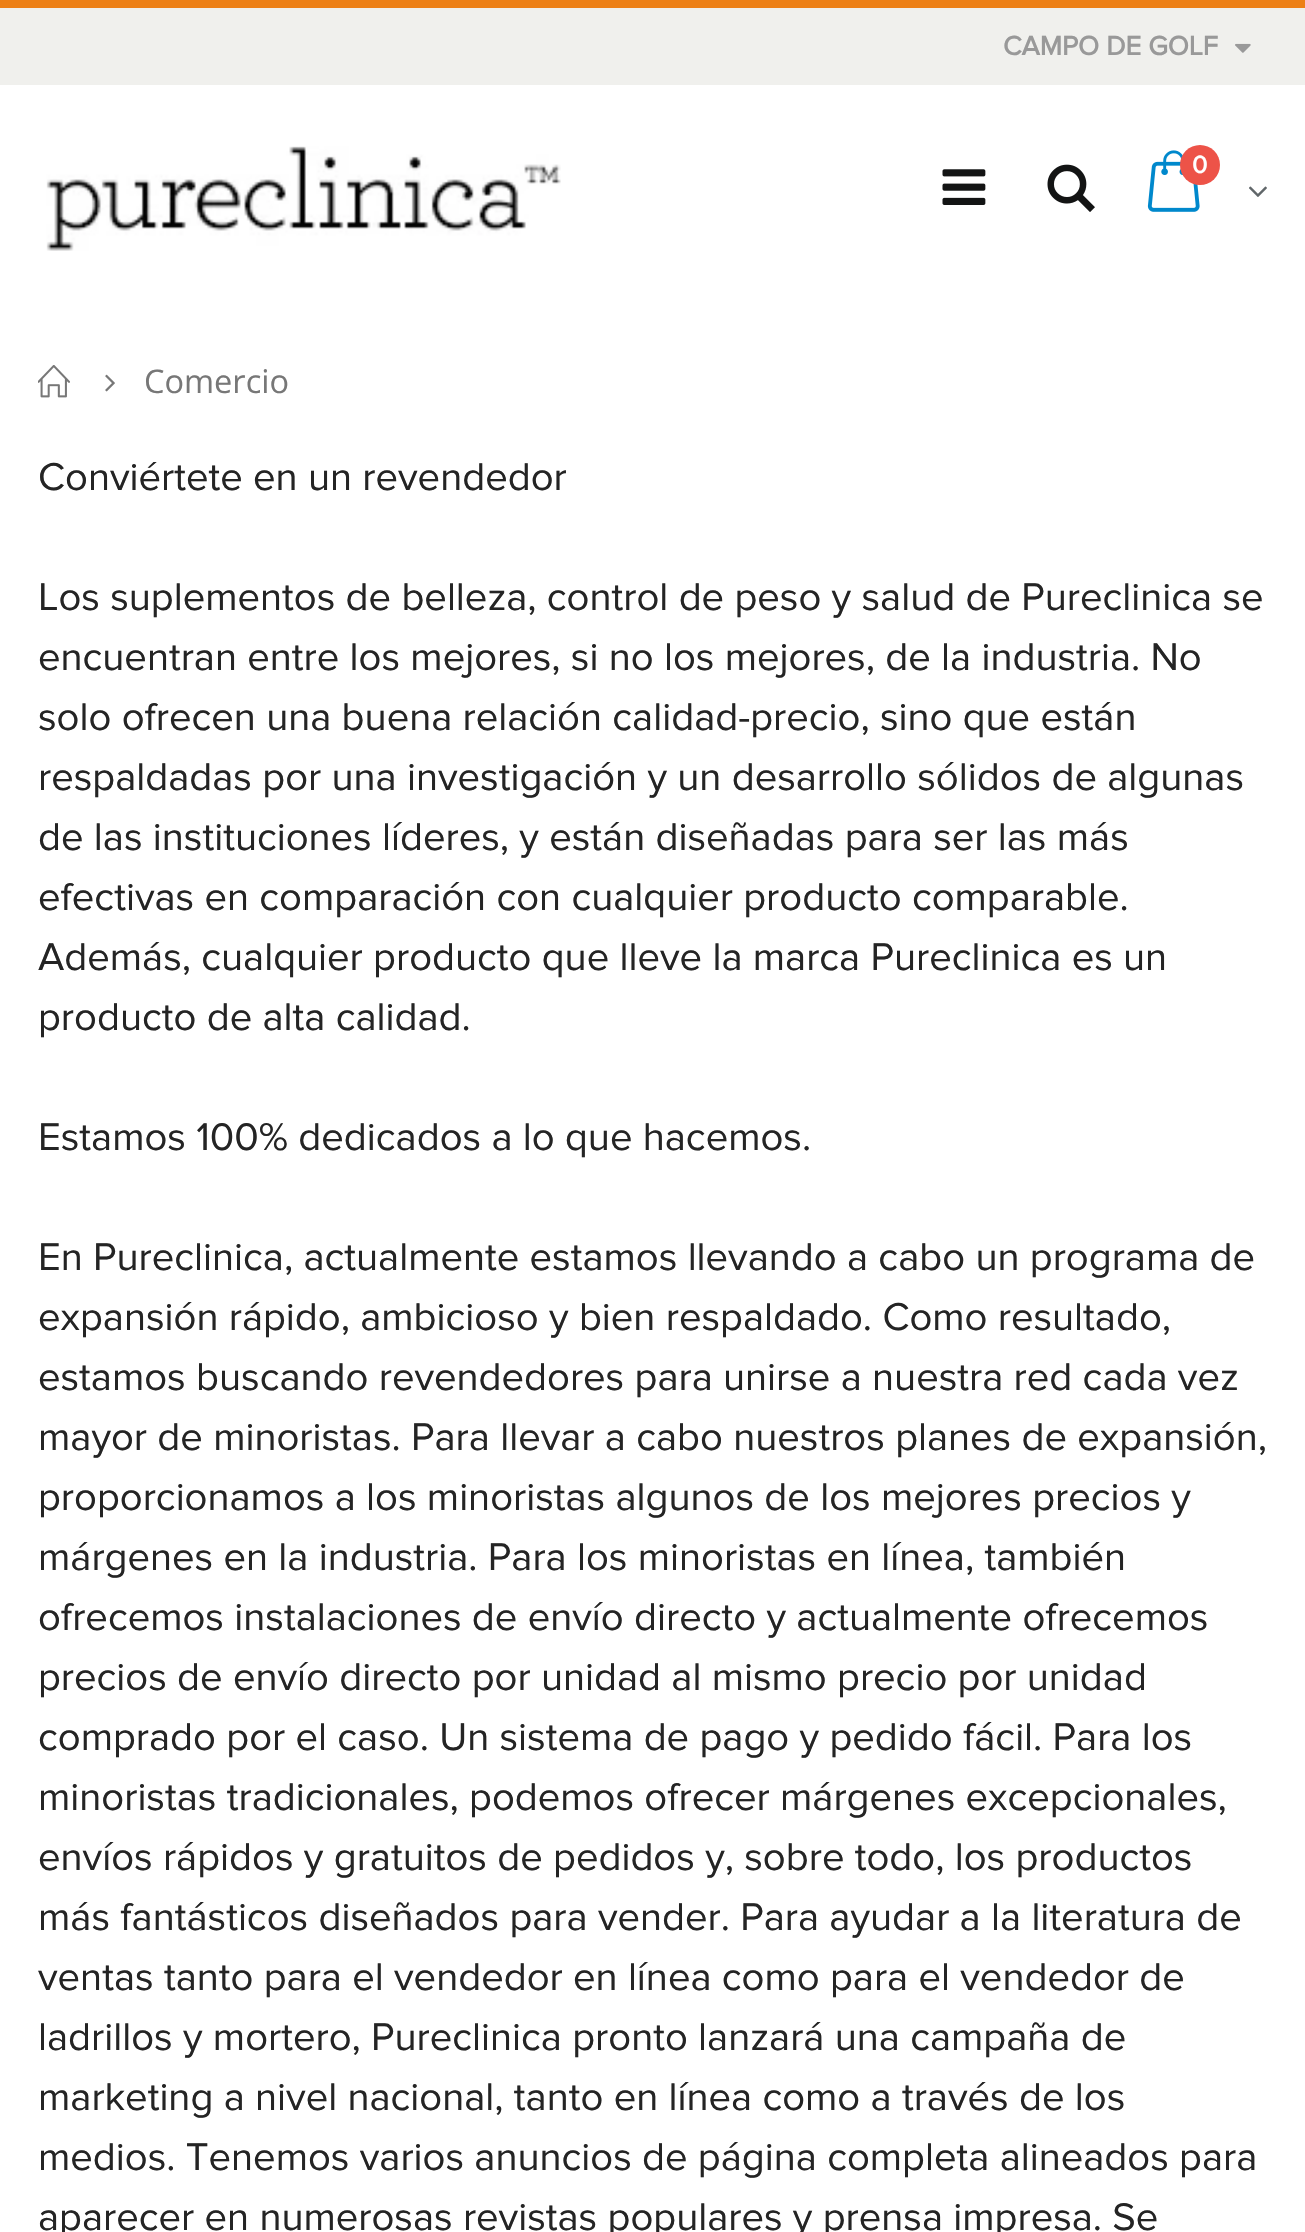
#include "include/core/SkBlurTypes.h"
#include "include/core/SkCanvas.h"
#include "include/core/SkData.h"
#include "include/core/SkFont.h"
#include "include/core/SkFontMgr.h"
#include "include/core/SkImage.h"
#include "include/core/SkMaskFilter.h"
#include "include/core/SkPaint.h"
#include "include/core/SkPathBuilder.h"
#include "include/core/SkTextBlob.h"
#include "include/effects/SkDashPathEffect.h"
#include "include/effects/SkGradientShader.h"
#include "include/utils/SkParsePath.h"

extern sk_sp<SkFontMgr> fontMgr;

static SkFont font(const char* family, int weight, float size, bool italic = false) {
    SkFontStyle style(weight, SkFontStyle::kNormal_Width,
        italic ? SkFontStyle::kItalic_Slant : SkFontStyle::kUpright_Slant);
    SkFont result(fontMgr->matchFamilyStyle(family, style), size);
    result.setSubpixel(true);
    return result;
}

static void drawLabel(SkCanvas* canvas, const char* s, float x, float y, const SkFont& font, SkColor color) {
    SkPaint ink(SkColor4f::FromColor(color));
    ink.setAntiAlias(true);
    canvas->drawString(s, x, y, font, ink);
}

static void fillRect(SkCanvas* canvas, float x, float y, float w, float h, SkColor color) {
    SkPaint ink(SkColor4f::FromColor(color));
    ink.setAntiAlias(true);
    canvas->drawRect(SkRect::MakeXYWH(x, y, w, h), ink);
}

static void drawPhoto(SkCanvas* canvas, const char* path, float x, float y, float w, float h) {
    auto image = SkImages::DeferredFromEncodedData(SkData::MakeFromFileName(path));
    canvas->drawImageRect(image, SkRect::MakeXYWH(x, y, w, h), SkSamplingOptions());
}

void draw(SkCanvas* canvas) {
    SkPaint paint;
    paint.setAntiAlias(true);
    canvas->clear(0xFFFFFFFF);
    fillRect(canvas, 0, 0, 1305, 8, 0xFFED8016);
    fillRect(canvas, 0, 8, 1305, 77, 0xFFF0F0ED);
    SkFont font1 = font("Proxima Nova", 700, 27.5f);
    drawLabel(canvas, "CAMPO DE GOLF", 1003, 55, font1, 0xFF999999);
    drawPhoto(canvas, "assets/img1.png", 1235, 43, 16, 10);
    drawPhoto(canvas, "assets/img2.png", 46, 146, 515, 105);
    drawPhoto(canvas, "assets/img3.png", 942, 169, 44, 36);
    drawPhoto(canvas, "assets/img4.png", 1047, 164, 48, 48);
    drawPhoto(canvas, "assets/img5.png", 1147, 150, 53, 62);
    paint.setColor(0xFFED5348);
    canvas->drawCircle(1200, 165, 20, paint);
    SkFont font2 = font("Proxima Nova", 700, 25);
    drawLabel(canvas, "0", 1192, 173, font2, 0xFFFFFFFF);
    drawPhoto(canvas, "assets/img6.png", 1249, 186, 18, 11);
    drawPhoto(canvas, "assets/img7.png", 38, 365, 32, 33);
    drawPhoto(canvas, "assets/img8.png", 105, 374, 10, 18);
    SkFont font3 = font("Open Sans", 400, 32.5f);
    drawLabel(canvas, "Comercio", 144, 393, font3, 0xFF777777);
    SkFont font4 = font("Proxima Nova", 400, 40);
    drawLabel(canvas, "Conviértete en un revendedor", 38, 490, font4, 0xFF242424);
    drawLabel(canvas, "Los suplementos de belleza, control de peso y salud de Pureclinica se", 38, 610, font4, 0xFF242424);
    drawLabel(canvas, "encuentran entre los mejores, si no los mejores, de la industria. No", 38, 670, font4, 0xFF242424);
    drawLabel(canvas, "solo ofrecen una buena relación calidad-precio, sino que están", 38, 730, font4, 0xFF242424);
    drawLabel(canvas, "respaldadas por una investigación y un desarrollo sólidos de algunas", 38, 790, font4, 0xFF242424);
    drawLabel(canvas, "de las instituciones líderes, y están diseñadas para ser las más", 38, 850, font4, 0xFF242424);
    drawLabel(canvas, "efectivas en comparación con cualquier producto comparable.", 38, 910, font4, 0xFF242424);
    drawLabel(canvas, "Además, cualquier producto que lleve la marca Pureclinica es un", 38, 970, font4, 0xFF242424);
    drawLabel(canvas, "producto de alta calidad.", 38, 1030, font4, 0xFF242424);
    drawLabel(canvas, "Estamos 100% dedicados a lo que hacemos.", 38, 1150, font4, 0xFF242424);
    drawLabel(canvas, "En Pureclinica, actualmente estamos llevando a cabo un programa de", 38, 1270, font4, 0xFF242424);
    drawLabel(canvas, "expansión rápido, ambicioso y bien respaldado. Como resultado,", 38, 1330, font4, 0xFF242424);
    drawLabel(canvas, "estamos buscando revendedores para unirse a nuestra red cada vez", 38, 1390, font4, 0xFF242424);
    drawLabel(canvas, "mayor de minoristas. Para llevar a cabo nuestros planes de expansión,", 38, 1450, font4, 0xFF242424);
    drawLabel(canvas, "proporcionamos a los minoristas algunos de los mejores precios y", 38, 1510, font4, 0xFF242424);
    drawLabel(canvas, "márgenes en la industria. Para los minoristas en línea, también", 38, 1570, font4, 0xFF242424);
    drawLabel(canvas, "ofrecemos instalaciones de envío directo y actualmente ofrecemos", 38, 1630, font4, 0xFF242424);
    drawLabel(canvas, "precios de envío directo por unidad al mismo precio por unidad", 38, 1690, font4, 0xFF242424);
    drawLabel(canvas, "comprado por el caso. Un sistema de pago y pedido fácil. Para los", 38, 1750, font4, 0xFF242424);
    drawLabel(canvas, "minoristas tradicionales, podemos ofrecer márgenes excepcionales,", 38, 1810, font4, 0xFF242424);
    drawLabel(canvas, "envíos rápidos y gratuitos de pedidos y, sobre todo, los productos", 38, 1870, font4, 0xFF242424);
    drawLabel(canvas, "más fantásticos diseñados para vender. Para ayudar a la literatura de", 38, 1930, font4, 0xFF242424);
    drawLabel(canvas, "ventas tanto para el vendedor en línea como para el vendedor de", 38, 1990, font4, 0xFF242424);
    drawLabel(canvas, "ladrillos y mortero, Pureclinica pronto lanzará una campaña de", 38, 2050, font4, 0xFF242424);
    drawLabel(canvas, "marketing a nivel nacional, tanto en línea como a través de los", 38, 2110, font4, 0xFF242424);
    drawLabel(canvas, "medios. Tenemos varios anuncios de página completa alineados para", 38, 2170, font4, 0xFF242424);
    drawLabel(canvas, "aparecer en numerosas revistas populares y prensa impresa. Se", 38, 2230, font4, 0xFF242424);
}
